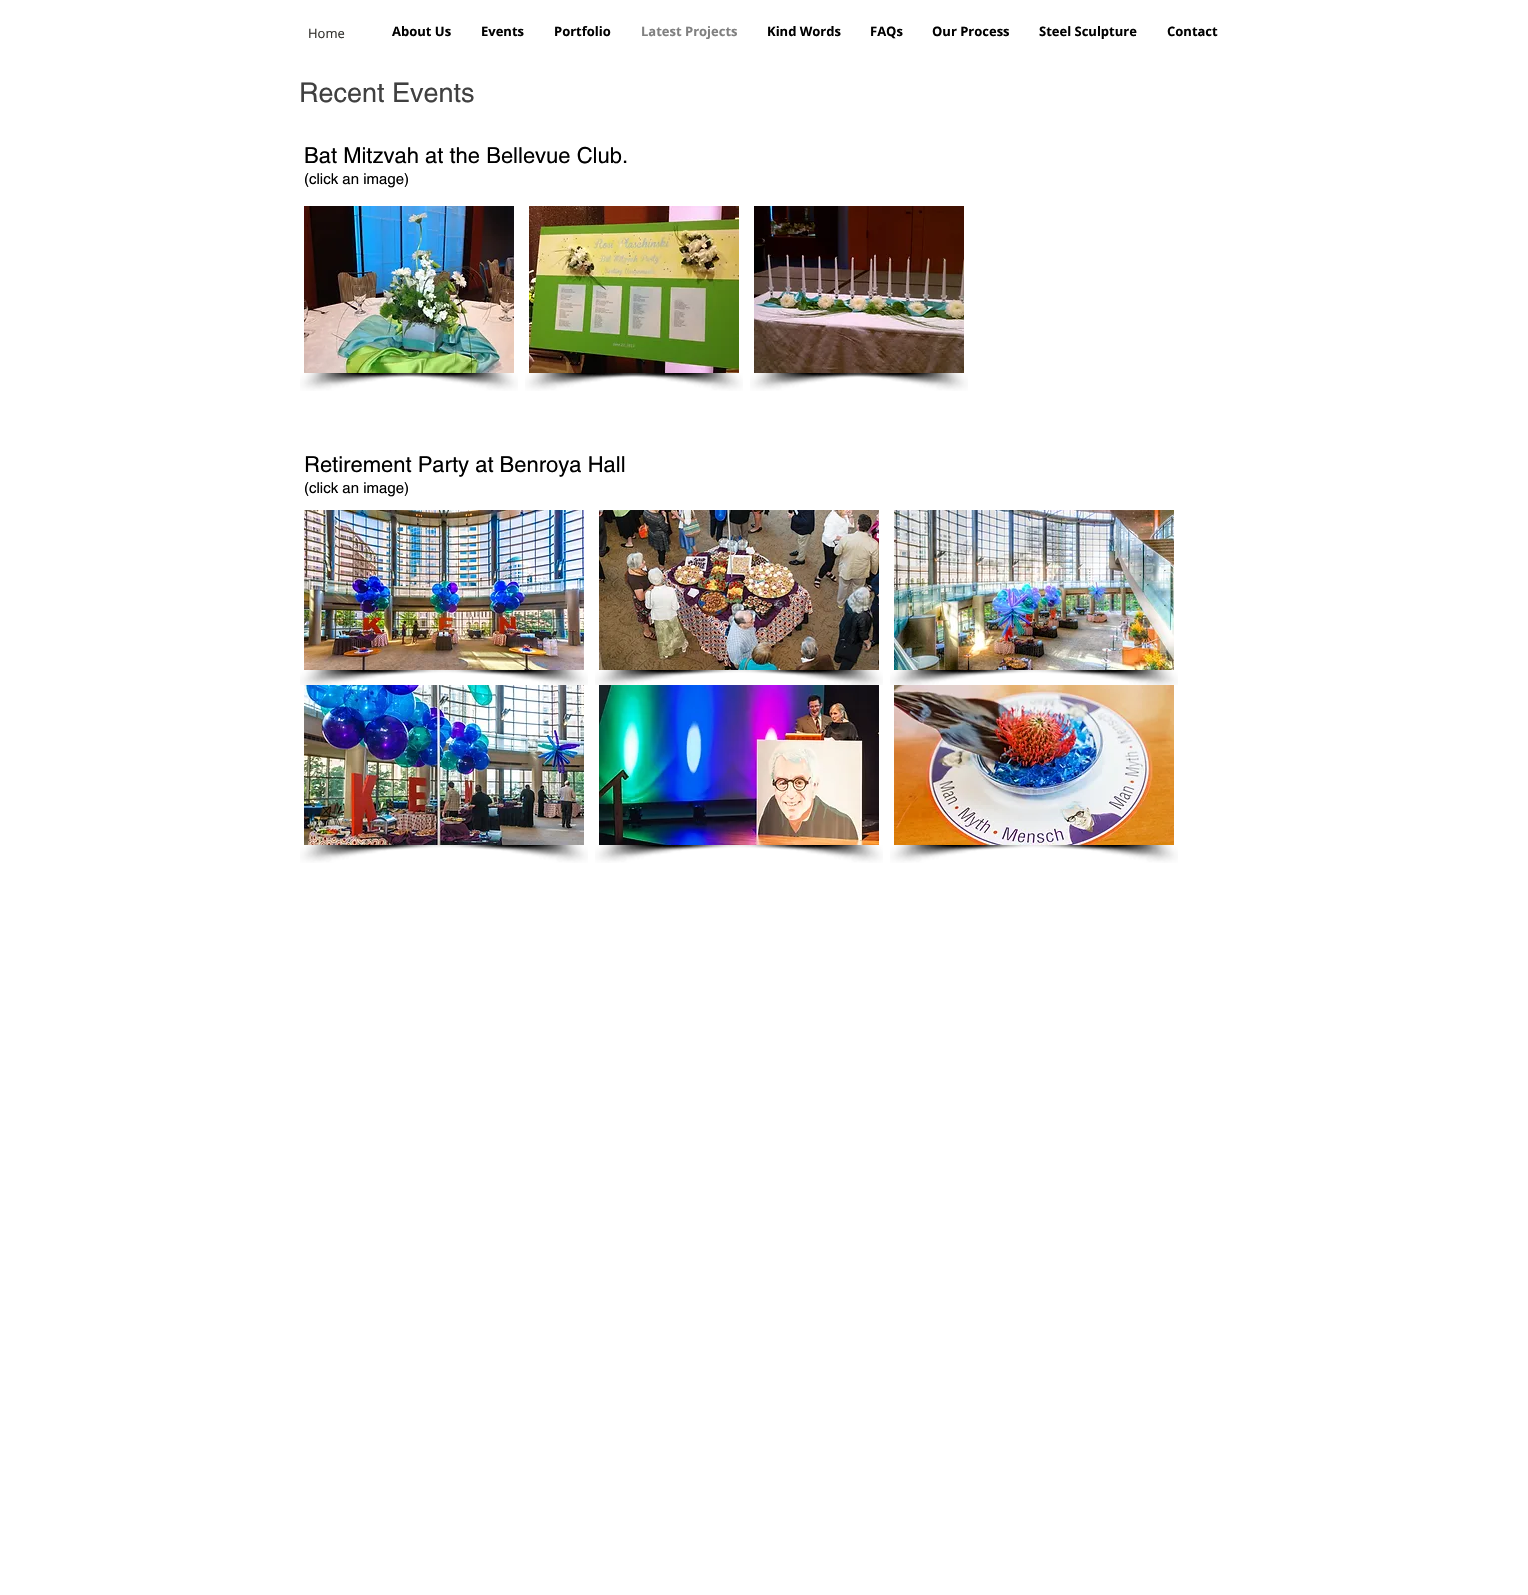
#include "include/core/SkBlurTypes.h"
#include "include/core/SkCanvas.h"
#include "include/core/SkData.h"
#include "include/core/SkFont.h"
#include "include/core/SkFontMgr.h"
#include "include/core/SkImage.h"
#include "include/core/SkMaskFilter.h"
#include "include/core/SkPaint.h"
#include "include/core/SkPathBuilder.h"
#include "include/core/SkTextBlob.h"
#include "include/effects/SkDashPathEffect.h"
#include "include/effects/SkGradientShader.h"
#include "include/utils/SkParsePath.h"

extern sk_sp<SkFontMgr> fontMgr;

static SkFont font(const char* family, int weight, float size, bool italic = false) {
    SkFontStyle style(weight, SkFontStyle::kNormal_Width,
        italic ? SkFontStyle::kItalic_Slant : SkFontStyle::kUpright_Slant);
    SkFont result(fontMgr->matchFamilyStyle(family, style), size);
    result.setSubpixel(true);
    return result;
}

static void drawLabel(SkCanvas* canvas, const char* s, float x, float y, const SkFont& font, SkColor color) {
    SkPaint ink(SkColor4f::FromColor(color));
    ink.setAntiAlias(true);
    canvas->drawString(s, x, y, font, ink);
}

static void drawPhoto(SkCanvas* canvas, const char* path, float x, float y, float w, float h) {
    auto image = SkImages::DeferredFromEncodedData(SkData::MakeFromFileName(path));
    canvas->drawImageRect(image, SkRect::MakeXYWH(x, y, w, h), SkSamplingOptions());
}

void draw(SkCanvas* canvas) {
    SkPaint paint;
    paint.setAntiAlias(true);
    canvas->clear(0xFFFFFFFF);
    SkFont font1 = font("Open Sans", 400, 13);
    drawLabel(canvas, "Home", 308, 38, font1, 0xFF31302C);
    SkFont font2 = font("Open Sans", 700, 13);
    drawLabel(canvas, "About Us", 392, 36, font2, 0xFF000000);
    drawLabel(canvas, "Events", 481, 36, font2, 0xFF000000);
    drawLabel(canvas, "Portfolio", 554, 36, font2, 0xFF000000);
    drawLabel(canvas, "Latest Projects", 641, 36, font2, 0xFF808080);
    drawLabel(canvas, "Kind Words", 767, 36, font2, 0xFF000000);
    drawLabel(canvas, "FAQs", 870, 36, font2, 0xFF000000);
    drawLabel(canvas, "Our Process", 932, 36, font2, 0xFF000000);
    drawLabel(canvas, "Steel Sculpture", 1039, 36, font2, 0xFF000000);
    drawLabel(canvas, "Contact", 1167, 36, font2, 0xFF000000);
    SkFont font3 = font("helvetica", 400, 27);
    drawLabel(canvas, "Recent Events", 299, 102, font3, 0xFF404040);
    SkFont font4 = font("helvetica", 400, 22);
    drawLabel(canvas, "Bat Mitzvah at the Bellevue Club.", 304, 163, font4, 0xFF000000);
    SkFont font5 = font("helvetica", 400, 15);
    drawLabel(canvas, "(click an image)", 304, 184, font5, 0xFF000000);
    drawPhoto(canvas, "assets/img1.png", 304, 206, 210, 167);
    drawPhoto(canvas, "assets/img2.png", 300, 373, 147, 18);
    drawPhoto(canvas, "assets/img3.png", 387, 373, 131, 18);
    drawPhoto(canvas, "assets/img4.png", 529, 206, 210, 167);
    drawPhoto(canvas, "assets/img2.png", 525, 373, 147, 18);
    drawPhoto(canvas, "assets/img3.png", 612, 373, 131, 18);
    drawPhoto(canvas, "assets/img5.png", 754, 206, 210, 167);
    drawPhoto(canvas, "assets/img2.png", 750, 373, 147, 18);
    drawPhoto(canvas, "assets/img3.png", 837, 373, 131, 18);
    drawLabel(canvas, "Retirement Party at Benroya Hall", 304, 472, font4, 0xFF000000);
    drawLabel(canvas, "(click an image)", 304, 493, font5, 0xFF000000);
    drawPhoto(canvas, "assets/img6.png", 304, 510, 280, 160);
    drawPhoto(canvas, "assets/img7.png", 300, 670, 154, 15);
    drawPhoto(canvas, "assets/img8.png", 434, 670, 154, 15);
    drawPhoto(canvas, "assets/img9.png", 599, 510, 280, 160);
    drawPhoto(canvas, "assets/img7.png", 595, 670, 154, 15);
    drawPhoto(canvas, "assets/img8.png", 729, 670, 154, 15);
    drawPhoto(canvas, "assets/img10.png", 894, 510, 280, 160);
    drawPhoto(canvas, "assets/img7.png", 890, 670, 154, 15);
    drawPhoto(canvas, "assets/img8.png", 1024, 670, 154, 15);
    drawPhoto(canvas, "assets/img11.png", 304, 685, 280, 160);
    drawPhoto(canvas, "assets/img12.png", 300, 845, 154, 18);
    drawPhoto(canvas, "assets/img13.png", 434, 845, 154, 18);
    drawPhoto(canvas, "assets/img14.png", 599, 685, 280, 160);
    drawPhoto(canvas, "assets/img12.png", 595, 845, 154, 18);
    drawPhoto(canvas, "assets/img13.png", 729, 845, 154, 18);
    drawPhoto(canvas, "assets/img15.png", 894, 685, 280, 160);
    drawPhoto(canvas, "assets/img12.png", 890, 845, 154, 18);
    drawPhoto(canvas, "assets/img13.png", 1024, 845, 154, 18);
}
